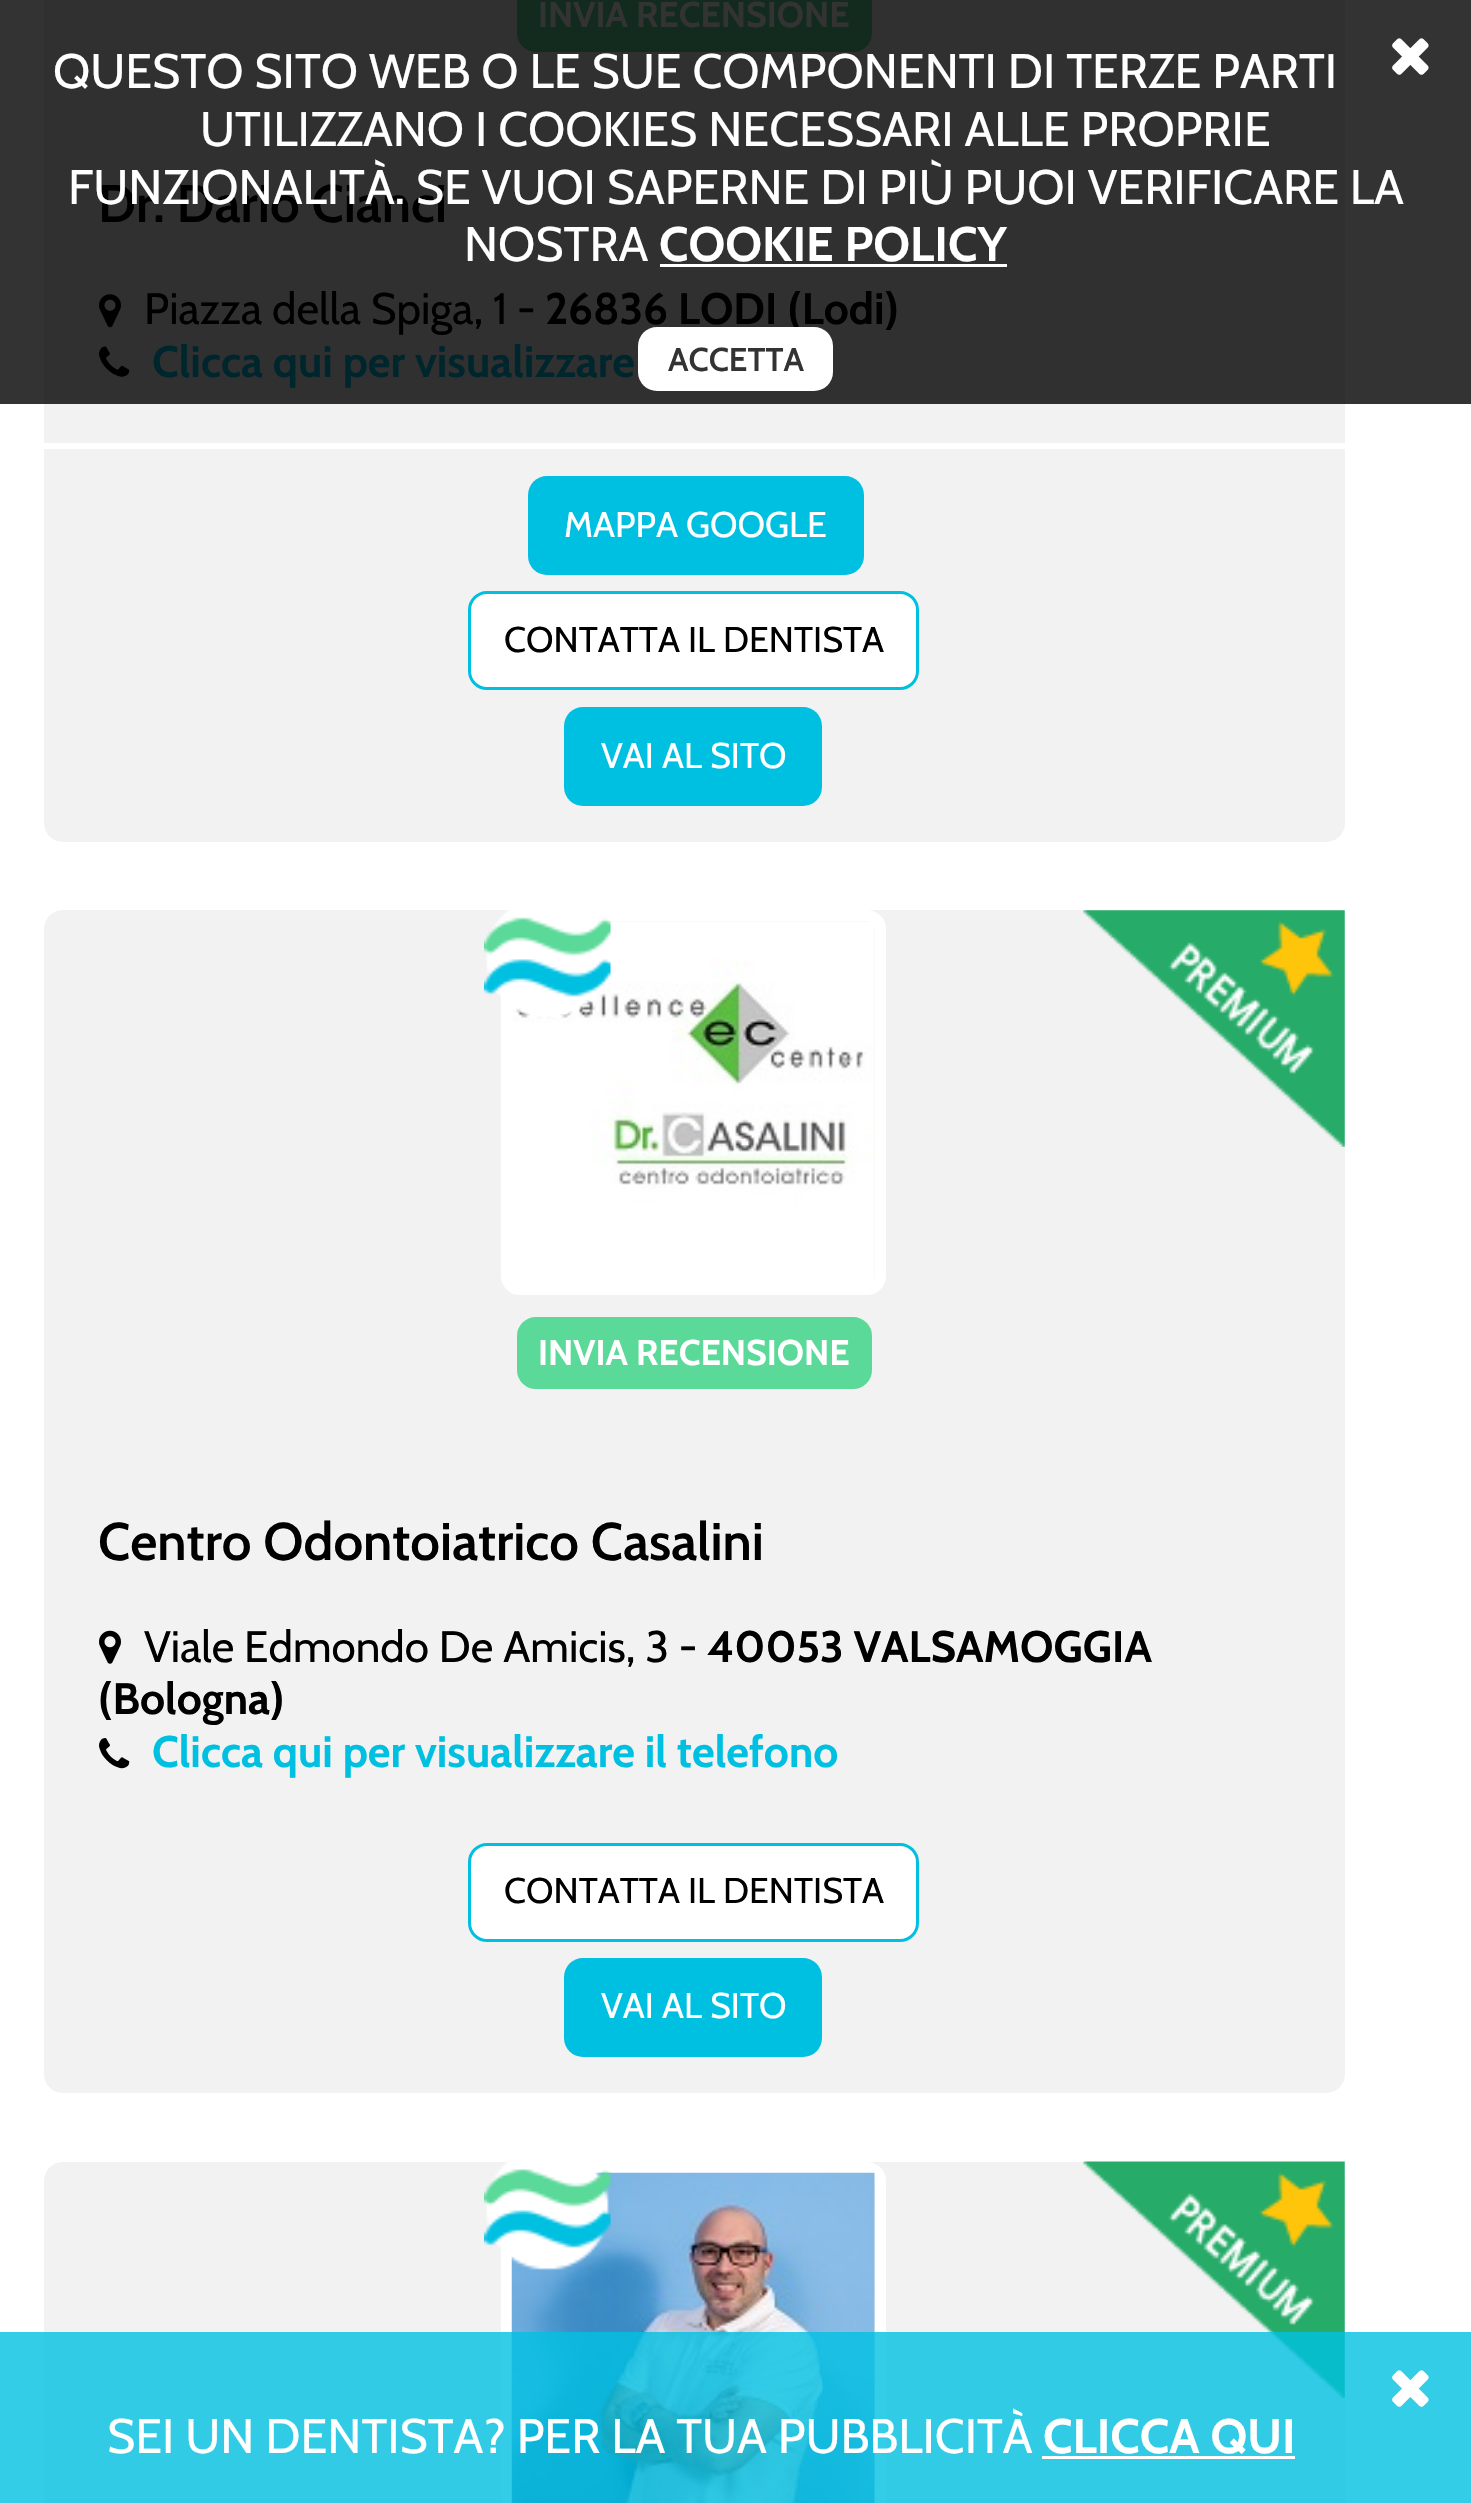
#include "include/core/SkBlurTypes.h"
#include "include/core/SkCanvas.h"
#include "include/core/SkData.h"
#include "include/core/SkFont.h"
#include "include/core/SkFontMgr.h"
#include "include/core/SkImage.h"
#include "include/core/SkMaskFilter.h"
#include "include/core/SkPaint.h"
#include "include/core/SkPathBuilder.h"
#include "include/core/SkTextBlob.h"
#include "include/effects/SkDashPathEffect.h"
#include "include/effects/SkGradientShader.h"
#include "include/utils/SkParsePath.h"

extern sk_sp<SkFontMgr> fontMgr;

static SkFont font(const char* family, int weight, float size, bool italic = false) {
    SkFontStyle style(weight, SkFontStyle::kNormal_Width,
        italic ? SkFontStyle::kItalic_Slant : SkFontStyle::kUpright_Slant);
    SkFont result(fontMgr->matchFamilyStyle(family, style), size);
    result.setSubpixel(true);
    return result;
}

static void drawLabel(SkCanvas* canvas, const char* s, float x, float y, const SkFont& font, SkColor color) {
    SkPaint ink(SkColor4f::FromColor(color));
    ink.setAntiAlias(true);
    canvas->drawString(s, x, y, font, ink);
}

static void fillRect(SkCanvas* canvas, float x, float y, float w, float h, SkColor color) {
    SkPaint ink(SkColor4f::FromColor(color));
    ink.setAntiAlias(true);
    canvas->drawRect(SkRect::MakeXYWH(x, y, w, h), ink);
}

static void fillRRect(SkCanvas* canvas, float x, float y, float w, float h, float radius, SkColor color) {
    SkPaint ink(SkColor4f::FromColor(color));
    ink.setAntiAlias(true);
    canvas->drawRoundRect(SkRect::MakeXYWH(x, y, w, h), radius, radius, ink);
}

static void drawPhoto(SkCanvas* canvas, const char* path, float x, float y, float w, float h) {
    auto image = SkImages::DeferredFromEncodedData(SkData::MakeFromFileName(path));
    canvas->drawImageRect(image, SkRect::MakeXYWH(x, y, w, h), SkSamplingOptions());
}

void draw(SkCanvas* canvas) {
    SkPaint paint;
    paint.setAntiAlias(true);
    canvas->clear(0xFFFFFFFF);
    fillRect(canvas, 0, 0, 1471, 404, 0xFF333333);
    fillRRect(canvas, 44, -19, 1301, 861, 19, 0xFFF2F2F2);
    fillRect(canvas, 44, 0, 1301, 404, 0xFF303030);
    paint.setColor(0xFF122B1E);
    canvas->drawRoundRect(SkRect::MakeXYWH(518.5f, -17.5f, 352, 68), 17.5f, 17.5f, paint);
    paint.setStroke(true);
    paint.setStrokeWidth(3);
    canvas->drawRoundRect(SkRect::MakeXYWH(518.5f, -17.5f, 352, 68), 17.5f, 17.5f, paint);
    SkFont font1 = font("Cabin", 700, 35.75f);
    drawLabel(canvas, "INVIA RECENSIONE", 538, 27, font1, 0xFF333333);
    SkFont font2 = font("Cabin", 600, 52.75f);
    drawLabel(canvas, "Dr. Dario Cianci", 98, 222, font2, 0xFF000000);
    drawPhoto(canvas, "assets/img1.png", 99, 294, 22, 34);
    SkFont font3 = font("Cabin", 400, 44);
    drawLabel(canvas, "Piazza della Spiga, 1 -", 144, 324, font3, 0xFF000000);
    SkFont font4 = font("Cabin", 700, 44);
    drawLabel(canvas, "26836 LODI (Lodi)", 545, 324, font4, 0xFF000000);
    drawPhoto(canvas, "assets/img2.png", 99, 346, 31, 31);
    drawLabel(canvas, "Clicca qui per visualizzare", 152, 377, font4, 0xFF00262D);
    fillRect(canvas, 44, 443, 1301, 6, 0xFFFFFFFF);
    fillRRect(canvas, 528, 476, 336, 99, 19, 0xFF00C0E2);
    SkFont font5 = font("Cabin", 400, 35.75f);
    drawLabel(canvas, "MAPPA GOOGLE", 564, 537, font5, 0xFFFFFFFF);
    paint.setStroke(false);
    paint.setColor(0xFFFFFFFF);
    canvas->drawRoundRect(SkRect::MakeXYWH(469.5f, 592.5f, 448, 96), 17.5f, 17.5f, paint);
    paint.setStroke(true);
    paint.setColor(0xFF00C0E2);
    canvas->drawRoundRect(SkRect::MakeXYWH(469.5f, 592.5f, 448, 96), 17.5f, 17.5f, paint);
    drawLabel(canvas, "CONTATTA IL DENTISTA", 504, 652, font5, 0xFF000000);
    fillRRect(canvas, 564, 707, 258, 99, 19, 0xFF00C0E2);
    drawLabel(canvas, "VAI AL SITO", 601, 768, font5, 0xFFFFFFFF);
    fillRRect(canvas, 44, 910, 1301, 1183, 19, 0xFFF2F2F2);
    drawPhoto(canvas, "assets/img3.png", 1083, 910, 262, 237);
    paint.setStrokeWidth(11);
    paint.setColor(0xFFFFFFFF);
    canvas->drawRoundRect(SkRect::MakeXYWH(506.5f, 915.5f, 374, 374), 13.5f, 13.5f, paint);
    drawPhoto(canvas, "assets/img5.png", 512, 921, 363, 363);
    drawPhoto(canvas, "assets/img4.png", 484, 910, 127, 108);
    paint.setStroke(false);
    paint.setColor(0xFF5AD998);
    canvas->drawRoundRect(SkRect::MakeXYWH(518.5f, 1318.5f, 352, 69), 17.5f, 17.5f, paint);
    paint.setStroke(true);
    paint.setStrokeWidth(3);
    canvas->drawRoundRect(SkRect::MakeXYWH(518.5f, 1318.5f, 352, 69), 17.5f, 17.5f, paint);
    drawLabel(canvas, "INVIA RECENSIONE", 538, 1365, font1, 0xFFFFFFFF);
    drawLabel(canvas, "Centro Odontoiatrico Casalini", 98, 1560, font2, 0xFF000000);
    drawPhoto(canvas, "assets/img6.png", 99, 1630, 22, 34);
    drawLabel(canvas, "Viale Edmondo De Amicis, 3 -", 144, 1662, font3, 0xFF000000);
    drawLabel(canvas, "40053 VALSAMOGGIA", 707, 1662, font4, 0xFF000000);
    drawLabel(canvas, "(Bologna)", 98, 1714, font4, 0xFF000000);
    drawPhoto(canvas, "assets/img7.png", 99, 1738, 31, 31);
    drawLabel(canvas, "Clicca qui per visualizzare il telefono", 152, 1767, font4, 0xFF00C0E2);
    paint.setStroke(false);
    paint.setColor(0xFFFFFFFF);
    canvas->drawRoundRect(SkRect::MakeXYWH(469.5f, 1844.5f, 448, 96), 17.5f, 17.5f, paint);
    paint.setStroke(true);
    paint.setColor(0xFF00C0E2);
    canvas->drawRoundRect(SkRect::MakeXYWH(469.5f, 1844.5f, 448, 96), 17.5f, 17.5f, paint);
    drawLabel(canvas, "CONTATTA IL DENTISTA", 504, 1903, font5, 0xFF000000);
    fillRRect(canvas, 564, 1958, 258, 99, 19, 0xFF00C0E2);
    drawLabel(canvas, "VAI AL SITO", 601, 2018, font5, 0xFFFFFFFF);
    fillRRect(canvas, 44, 2162, 1301, 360, 19, 0xFFF2F2F2);
    paint.setStrokeWidth(11);
    paint.setColor(0xFFFFFFFF);
    canvas->drawRoundRect(SkRect::MakeXYWH(506.5f, 2167.5f, 374, 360), 13.5f, 13.5f, paint);
    drawPhoto(canvas, "assets/img9.png", 511, 2172, 364, 331);
    drawPhoto(canvas, "assets/img8.png", 484, 2162, 127, 108);
    drawPhoto(canvas, "assets/img10.png", 1083, 2161, 262, 237);
    SkFont font6 = font("Cabin", 400, 48.4f);
    drawLabel(canvas, "QUESTO SITO WEB O LE SUE COMPONENTI DI TERZE PARTI", 53, 88, font6, 0xFFFFFFFF);
    drawLabel(canvas, "UTILIZZANO I COOKIES NECESSARI ALLE PROPRIE", 200, 146, font6, 0xFFFFFFFF);
    drawLabel(canvas, "FUNZIONALITÀ. SE VUOI SAPERNE DI PIÙ PUOI VERIFICARE LA", 68, 204, font6, 0xFFFFFFFF);
    drawLabel(canvas, "NOSTRA", 464, 261, font6, 0xFFFFFFFF);
    SkFont font7 = font("Cabin", 700, 48.4f);
    drawLabel(canvas, "COOKIE POLICY", 659, 261, font7, 0xFFFFFFFF);
    fillRect(canvas, 660, 264, 347, 3, 0xFFFFFFFF);
    drawPhoto(canvas, "assets/img11.png", 1392, 38, 37, 37);
    fillRRect(canvas, 638, 327, 195, 64, 19, 0xFFFFFFFF);
    SkFont font8 = font("Cabin", 600, 33);
    drawLabel(canvas, "ACCETTA", 668, 371, font8, 0xFF333333);
    fillRect(canvas, 0, 2332, 1471, 171, 0xCC00C0E2);
    drawPhoto(canvas, "assets/img12.png", 1392, 2370, 37, 37);
    drawLabel(canvas, "SEI UN DENTISTA? PER LA TUA PUBBLICITÀ", 107, 2453, font6, 0xFFFFFFFF);
    drawLabel(canvas, "CLICCA QUI", 1043, 2453, font7, 0xFFFFFFFF);
    fillRect(canvas, 1042, 2456, 253, 3, 0xFFFFFFFF);
}
